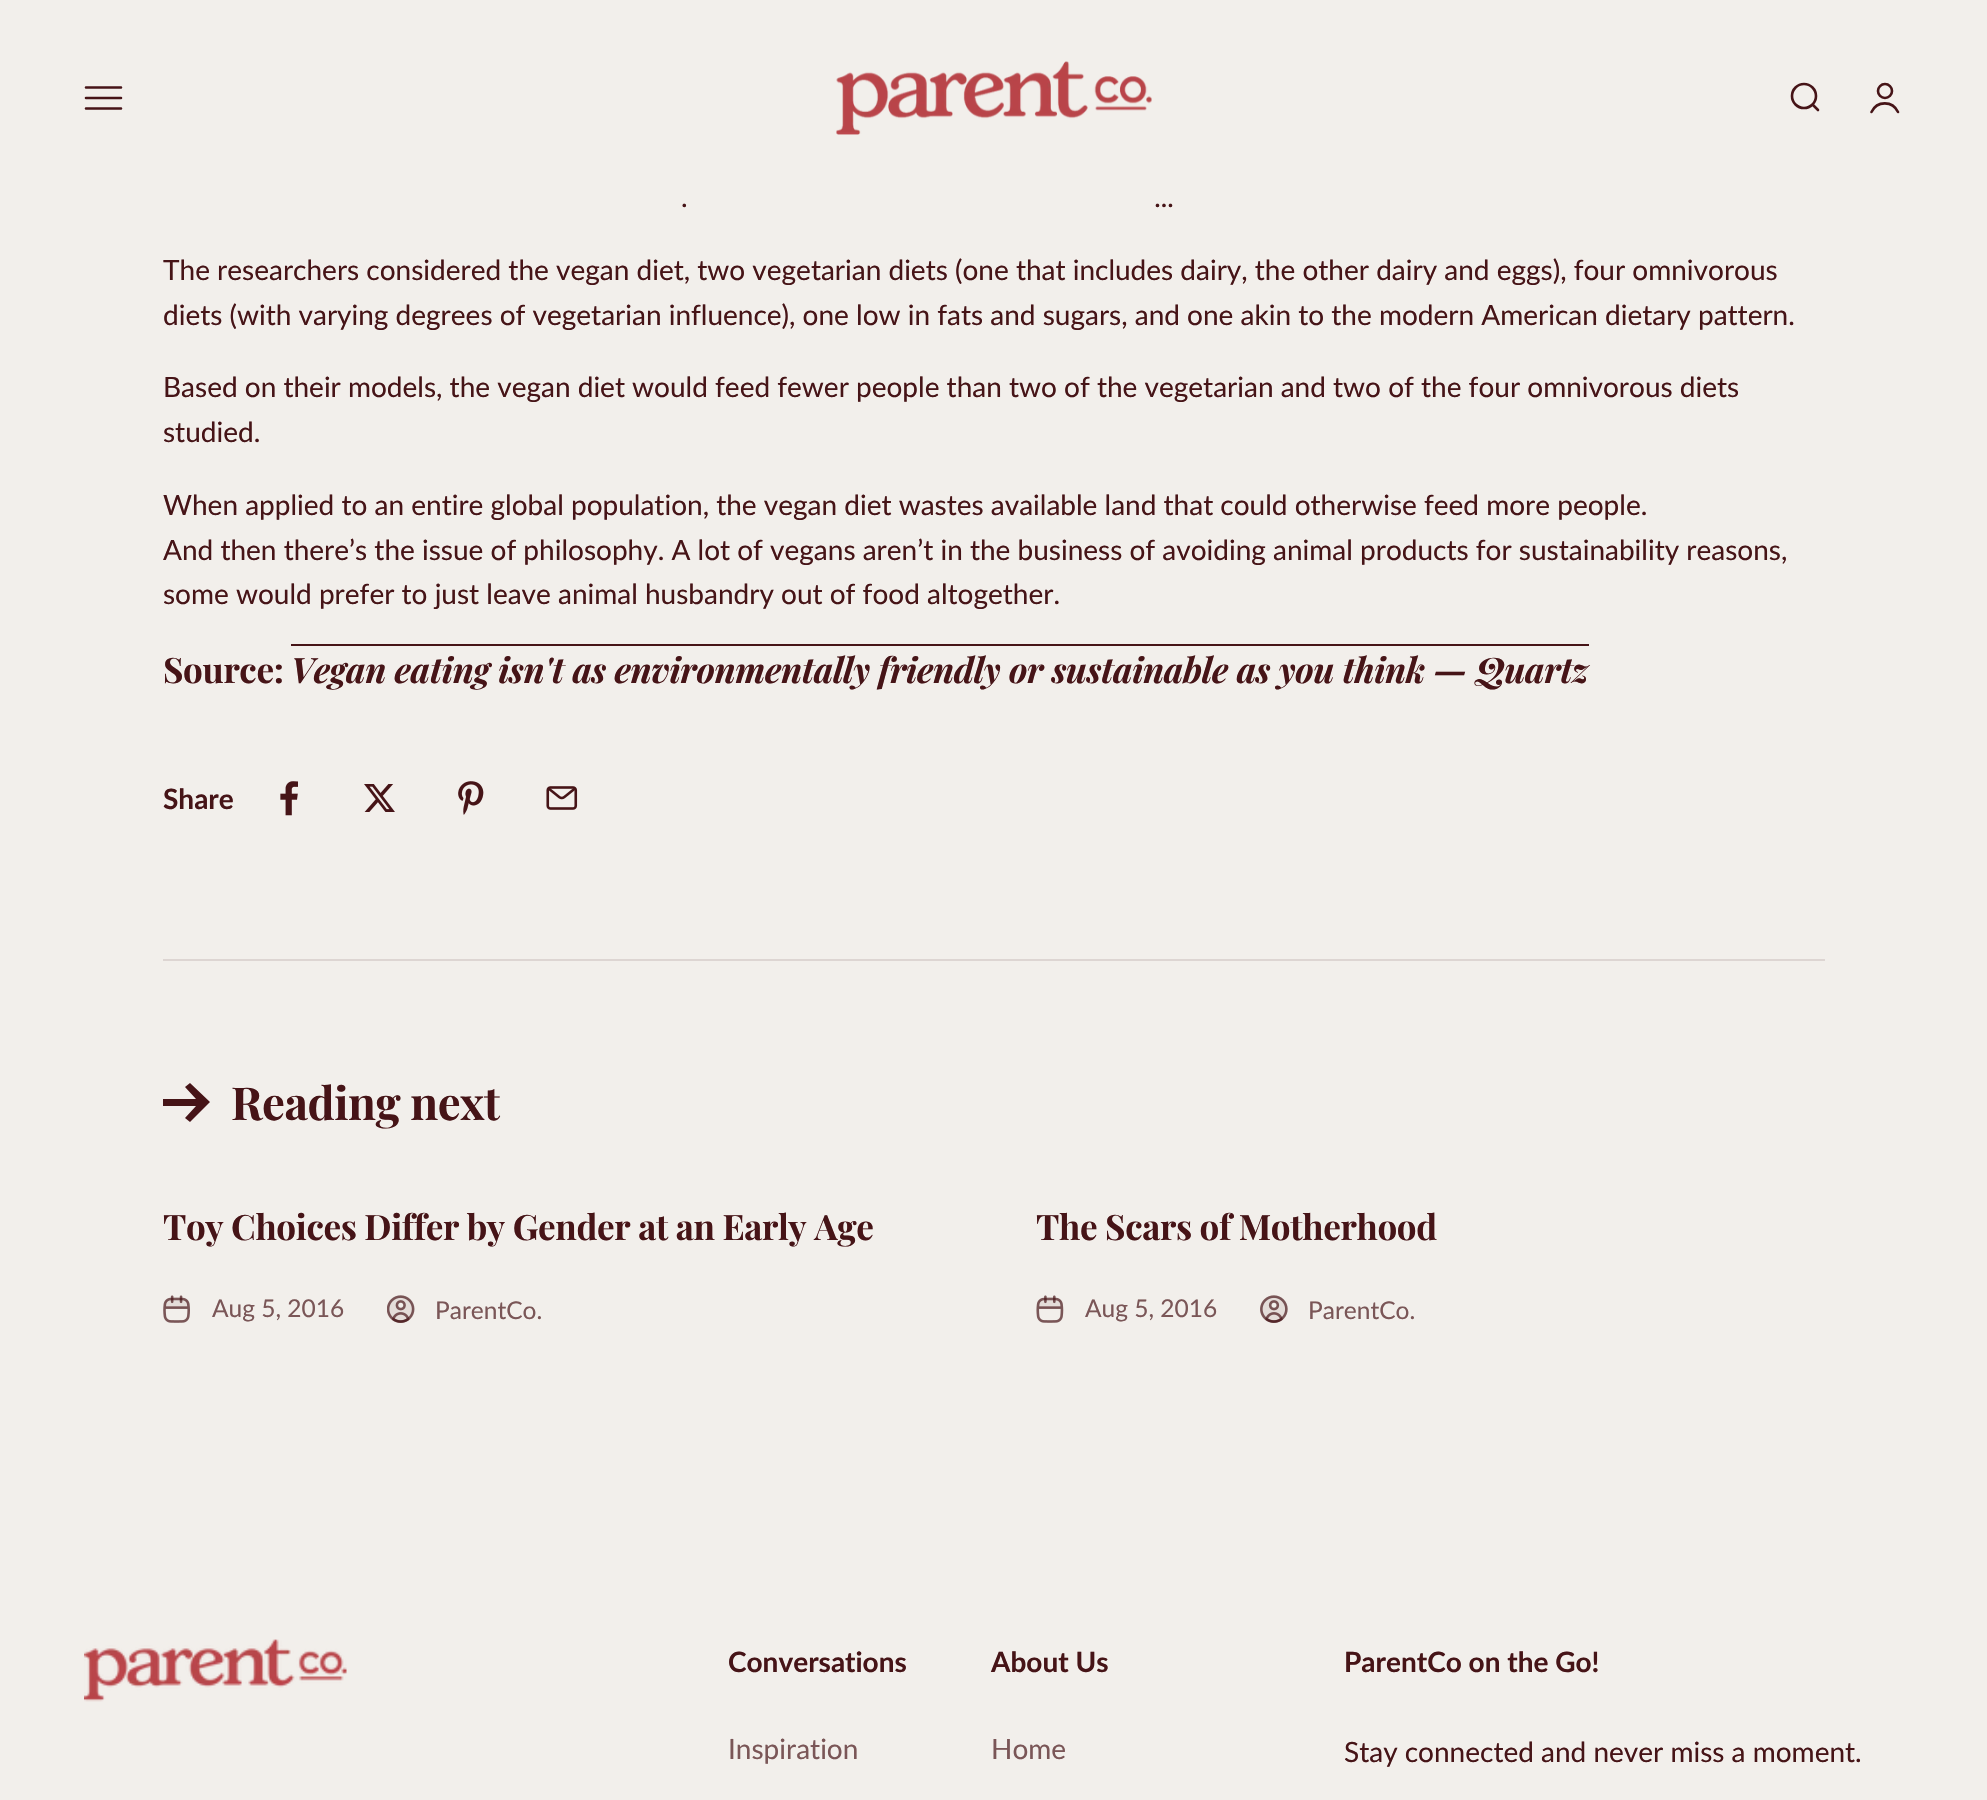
#include "include/core/SkBlurTypes.h"
#include "include/core/SkCanvas.h"
#include "include/core/SkData.h"
#include "include/core/SkFont.h"
#include "include/core/SkFontMgr.h"
#include "include/core/SkImage.h"
#include "include/core/SkMaskFilter.h"
#include "include/core/SkPaint.h"
#include "include/core/SkPathBuilder.h"
#include "include/core/SkTextBlob.h"
#include "include/effects/SkDashPathEffect.h"
#include "include/effects/SkGradientShader.h"
#include "include/utils/SkParsePath.h"

extern sk_sp<SkFontMgr> fontMgr;

static SkFont font(const char* family, int weight, float size, bool italic = false) {
    SkFontStyle style(weight, SkFontStyle::kNormal_Width,
        italic ? SkFontStyle::kItalic_Slant : SkFontStyle::kUpright_Slant);
    SkFont result(fontMgr->matchFamilyStyle(family, style), size);
    result.setSubpixel(true);
    return result;
}

static void drawLabel(SkCanvas* canvas, const char* s, float x, float y, const SkFont& font, SkColor color) {
    SkPaint ink(SkColor4f::FromColor(color));
    ink.setAntiAlias(true);
    canvas->drawString(s, x, y, font, ink);
}

static void drawTracked(SkCanvas* canvas, const char* s, float x, float y, const SkFont& font, const SkPaint& ink, float letter, float word) {
    std::vector<SkGlyphID> glyphs(font.countText(s, strlen(s), SkTextEncoding::kUTF8));
    std::vector<float> xs(glyphs.size());
    font.textToGlyphs(s, strlen(s), SkTextEncoding::kUTF8, glyphs);
    font.getXPos(glyphs, xs, x);
    float extra = 0;
    for (size_t i = 0; i < glyphs.size(); i++) {
        xs[i] += extra;
        extra += letter + word * (glyphs[i] == font.unicharToGlyph(' '));
    }
    canvas->drawTextBlob(SkTextBlob::MakeFromPosHGlyphs(glyphs, xs, y, font), 0, 0, ink);
}

static void fillRect(SkCanvas* canvas, float x, float y, float w, float h, SkColor color) {
    SkPaint ink(SkColor4f::FromColor(color));
    ink.setAntiAlias(true);
    canvas->drawRect(SkRect::MakeXYWH(x, y, w, h), ink);
}

static void drawPhoto(SkCanvas* canvas, const char* path, float x, float y, float w, float h) {
    auto image = SkImages::DeferredFromEncodedData(SkData::MakeFromFileName(path));
    canvas->drawImageRect(image, SkRect::MakeXYWH(x, y, w, h), SkSamplingOptions());
}

static SkPath parsePath(const char* data, bool evenOdd = false) {
    SkPath result = *SkParsePath::FromSVGString(data);
    if (evenOdd) result.setFillType(SkPathFillType::kEvenOdd);
    return result;
}

void draw(SkCanvas* canvas) {
    SkPaint paint;
    paint.setAntiAlias(true);
    canvas->clear(0xFFF2EFEB);
    paint.setStroke(true);
    paint.setStrokeWidth(2.6f);
    paint.setStrokeCap(SkPaint::kRound_Cap);
    paint.setColor(0xFF461417);
    canvas->drawPath(parsePath("M86 87.5H121M86 98H121M86 108.5H121"), paint);
    drawPhoto(canvas, "assets/img1.png", 836, 61, 316, 74);
    paint.setStrokeCap(SkPaint::kButt_Cap);
    canvas->drawCircle(1804, 96, 12, paint);
    paint.setStrokeCap(SkPaint::kRound_Cap);
    paint.setStrokeJoin(SkPaint::kRound_Join);
    canvas->drawPath(parsePath("M1813 105L1818 110"), paint);
    paint.setStrokeCap(SkPaint::kButt_Cap);
    paint.setStrokeJoin(SkPaint::kMiter_Join);
    canvas->drawCircle(1885, 91, 7, paint);
    paint.setStrokeCap(SkPaint::kRound_Cap);
    canvas->drawPath(parsePath("M1871.5 112C1877 100.5 1892.5 100.5 1898 112"), paint);
    fillRect(canvas, 163, 959, 1662, 2, 0xFFDDD5D2);
    SkFont font1 = font("Lato", 400, 28);
    drawLabel(canvas, ".", 681, 207, font1, 0xFF461417);
    SkFont font2 = font("Lato", 400, 28, true);
    drawLabel(canvas, "...", 1155, 207, font2, 0xFF461417);
    drawLabel(canvas, "The researchers considered the vegan diet, two vegetarian diets (one that includes dairy, the other dairy and eggs), four omnivorous", 163, 280, font1, 0xFF461417);
    drawLabel(canvas, "diets (with varying degrees of vegetarian influence), one low in fats and sugars, and one akin to the modern American dietary pattern.", 163, 325, font1, 0xFF461417);
    drawLabel(canvas, "Based on their models, the vegan diet would feed fewer people than two of the vegetarian and two of the four omnivorous diets", 163, 397, font1, 0xFF461417);
    drawLabel(canvas, "studied.", 163, 442, font1, 0xFF461417);
    drawLabel(canvas, "When applied to an entire global population, the vegan diet wastes available land that could otherwise feed more people.", 163, 515, font1, 0xFF461417);
    drawLabel(canvas, "And then there’s the issue of philosophy. A lot of vegans aren’t in the business of avoiding animal products for sustainability reasons,", 163, 560, font1, 0xFF461417);
    drawLabel(canvas, "some would prefer to just leave animal husbandry out of food altogether.", 163, 604, font1, 0xFF461417);
    SkFont font3 = font("Playfair Display", 700, 35);
    paint.setStroke(false);
    drawTracked(canvas, "Source:", 163, 683, font3, paint, -0.35f, 0);
    SkFont font4 = font("Playfair Display", 700, 35, true);
    drawTracked(canvas, "Vegan eating isn't as environmentally friendly or sustainable as you think — Quartz", 291, 683, font4, paint, -0.35f, 0);
    fillRect(canvas, 291, 644, 1298, 2, 0xFF461417);
    SkFont font5 = font("Lato", 700, 28);
    drawLabel(canvas, "Share", 163, 809, font5, 0xFF461417);
    drawPhoto(canvas, "assets/img2.png", 280, 781, 18, 35);
    drawPhoto(canvas, "assets/img3.png", 364, 784, 31, 28);
    drawPhoto(canvas, "assets/img4.png", 458, 781, 26, 34);
    drawPhoto(canvas, "assets/img5.png", 546, 786, 32, 24);
    canvas->drawPath(parsePath("M190 1083L210 1102L190 1122L185 1118L196 1106H163V1099H196L185 1087Z", true), paint);
    SkFont font6 = font("Playfair Display", 700, 45.5f);
    drawTracked(canvas, "Reading next", 231, 1120, font6, paint, -0.5f, 0);
    drawTracked(canvas, "Toy Choices Differ by Gender at an Early Age", 163, 1240, font3, paint, -0.35f, 0);
    drawPhoto(canvas, "assets/img6.png", 163, 1295, 27, 28);
    SkFont font7 = font("Lato", 400, 24.5f);
    drawLabel(canvas, "Aug 5, 2016", 212, 1317, font7, 0xFF7A5657);
    drawPhoto(canvas, "assets/img7.png", 387, 1295, 28, 28);
    drawLabel(canvas, "ParentCo.", 435, 1319, font7, 0xFF7A5657);
    drawTracked(canvas, "The Scars of Motherhood", 1036, 1240, font3, paint, -0.35f, 0);
    drawPhoto(canvas, "assets/img8.png", 1036, 1295, 28, 28);
    drawLabel(canvas, "Aug 5, 2016", 1085, 1317, font7, 0xFF7A5657);
    drawPhoto(canvas, "assets/img9.png", 1260, 1295, 28, 28);
    drawLabel(canvas, "ParentCo.", 1308, 1319, font7, 0xFF7A5657);
    drawPhoto(canvas, "assets/img10.png", 84, 1639, 263, 63);
    drawLabel(canvas, "Conversations", 728, 1672, font5, 0xFF461417);
    drawLabel(canvas, "Inspiration", 728, 1759, font1, 0xFF7A5657);
    drawLabel(canvas, "About Us", 991, 1672, font5, 0xFF461417);
    drawLabel(canvas, "Home", 991, 1759, font1, 0xFF7A5657);
    drawLabel(canvas, "ParentCo on the Go!", 1344, 1672, font5, 0xFF461417);
    drawLabel(canvas, "Stay connected and never miss a moment.", 1344, 1762, font1, 0xFF461417);
}
